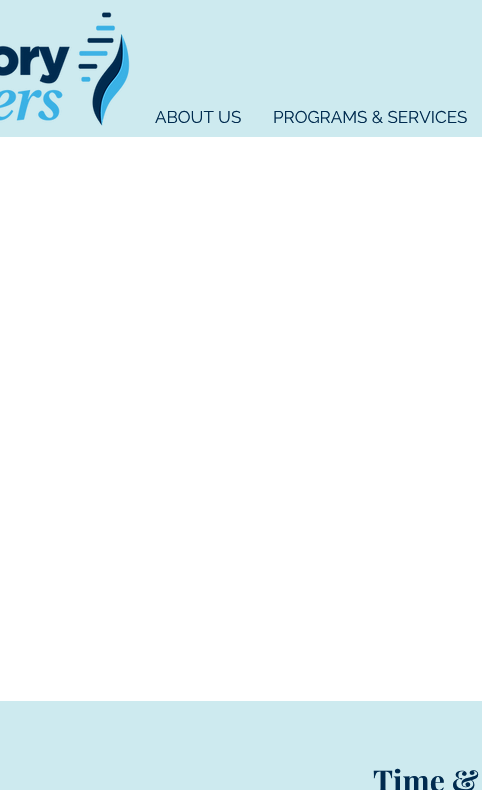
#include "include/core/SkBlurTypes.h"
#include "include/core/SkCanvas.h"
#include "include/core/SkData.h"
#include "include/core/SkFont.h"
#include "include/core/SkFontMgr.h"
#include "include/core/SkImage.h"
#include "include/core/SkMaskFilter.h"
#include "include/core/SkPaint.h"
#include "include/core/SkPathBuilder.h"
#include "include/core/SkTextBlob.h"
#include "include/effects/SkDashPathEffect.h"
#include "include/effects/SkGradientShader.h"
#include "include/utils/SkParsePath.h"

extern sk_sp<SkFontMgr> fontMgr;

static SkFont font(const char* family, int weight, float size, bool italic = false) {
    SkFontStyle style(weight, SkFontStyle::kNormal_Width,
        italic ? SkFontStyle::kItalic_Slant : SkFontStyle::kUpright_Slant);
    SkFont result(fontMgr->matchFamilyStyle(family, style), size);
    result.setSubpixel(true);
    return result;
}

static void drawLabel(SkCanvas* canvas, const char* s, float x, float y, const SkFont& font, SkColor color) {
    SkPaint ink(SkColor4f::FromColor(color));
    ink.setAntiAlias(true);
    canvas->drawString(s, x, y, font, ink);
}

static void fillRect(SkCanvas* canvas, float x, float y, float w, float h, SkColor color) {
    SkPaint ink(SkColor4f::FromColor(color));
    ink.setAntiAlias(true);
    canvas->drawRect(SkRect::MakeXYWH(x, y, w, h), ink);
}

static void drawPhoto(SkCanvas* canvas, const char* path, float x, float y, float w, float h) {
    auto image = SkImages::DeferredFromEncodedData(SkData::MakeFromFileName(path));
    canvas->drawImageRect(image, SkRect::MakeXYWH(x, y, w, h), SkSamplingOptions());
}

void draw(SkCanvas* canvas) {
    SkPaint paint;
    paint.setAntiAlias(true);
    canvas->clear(0xFFCDEAEF);
    drawPhoto(canvas, "assets/img1.png", 0, 12, 130, 114);
    SkFont font1 = font("Raleway", 400, 17);
    drawLabel(canvas, "ABOUT US", 155, 123, font1, 0xFF002B4F);
    drawLabel(canvas, "PROGRAMS & SERVICES", 273, 123, font1, 0xFF002B4F);
    fillRect(canvas, 0, 137, 482, 564, 0xFFFFFFFF);
    SkFont font2 = font("Playfair Display", 700, 30);
    drawLabel(canvas, "Time &", 373, 792, font2, 0xFF002B4F);
}
